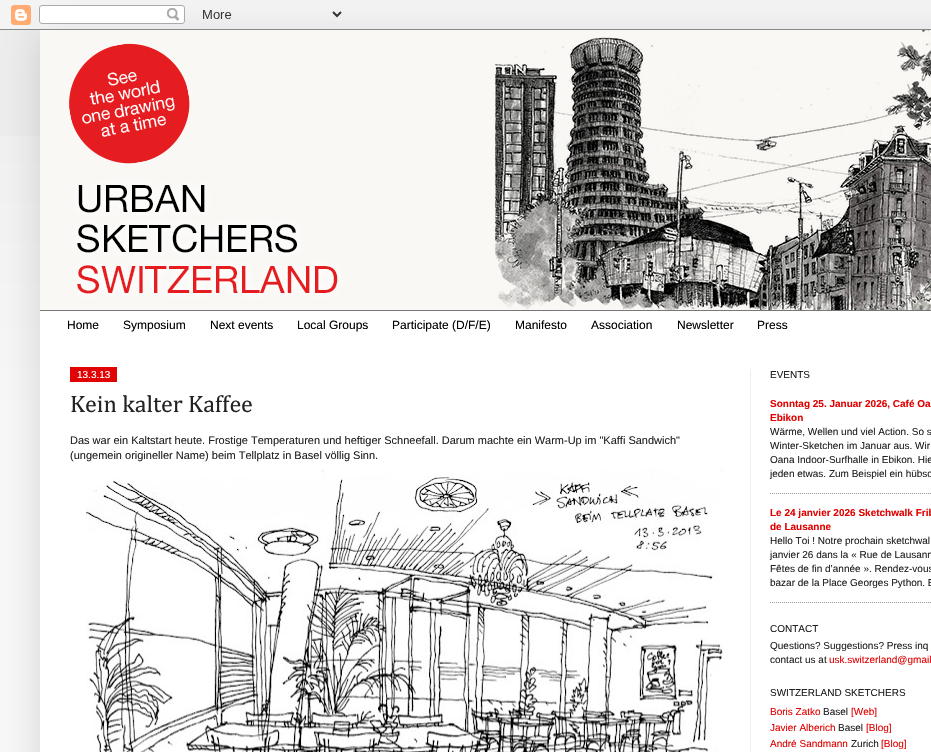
#include "include/core/SkBlurTypes.h"
#include "include/core/SkCanvas.h"
#include "include/core/SkData.h"
#include "include/core/SkFont.h"
#include "include/core/SkFontMgr.h"
#include "include/core/SkImage.h"
#include "include/core/SkMaskFilter.h"
#include "include/core/SkPaint.h"
#include "include/core/SkPathBuilder.h"
#include "include/core/SkTextBlob.h"
#include "include/effects/SkDashPathEffect.h"
#include "include/effects/SkGradientShader.h"
#include "include/utils/SkParsePath.h"

extern sk_sp<SkFontMgr> fontMgr;

static SkFont font(const char* family, int weight, float size, bool italic = false) {
    SkFontStyle style(weight, SkFontStyle::kNormal_Width,
        italic ? SkFontStyle::kItalic_Slant : SkFontStyle::kUpright_Slant);
    SkFont result(fontMgr->matchFamilyStyle(family, style), size);
    result.setSubpixel(true);
    return result;
}

static void drawLabel(SkCanvas* canvas, const char* s, float x, float y, const SkFont& font, SkColor color) {
    SkPaint ink(SkColor4f::FromColor(color));
    ink.setAntiAlias(true);
    canvas->drawString(s, x, y, font, ink);
}

static void fillRect(SkCanvas* canvas, float x, float y, float w, float h, SkColor color) {
    SkPaint ink(SkColor4f::FromColor(color));
    ink.setAntiAlias(true);
    canvas->drawRect(SkRect::MakeXYWH(x, y, w, h), ink);
}

static void drawPhoto(SkCanvas* canvas, const char* path, float x, float y, float w, float h) {
    auto image = SkImages::DeferredFromEncodedData(SkData::MakeFromFileName(path));
    canvas->drawImageRect(image, SkRect::MakeXYWH(x, y, w, h), SkSamplingOptions());
}

static SkPath parsePath(const char* data, bool evenOdd = false) {
    SkPath result = *SkParsePath::FromSVGString(data);
    if (evenOdd) result.setFillType(SkPathFillType::kEvenOdd);
    return result;
}

void draw(SkCanvas* canvas) {
    SkPaint paint;
    paint.setAntiAlias(true);
    canvas->clear(0xFFF9F9F9);
    fillRect(canvas, 0, 0, 931, 400, 0xFFEEEEEE);
    drawPhoto(canvas, "assets/img1.png", 0, 136, 40, 264);
    paint.setColor(0x26000000);
    paint.setMaskFilter(SkMaskFilter::MakeBlur(kNormal_SkBlurStyle, 20));
    canvas->drawRect(SkRect::MakeXYWH(40, 30, 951, 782), paint);
    paint.setMaskFilter(nullptr);
    drawPhoto(canvas, "assets/img2.png", 0, 0, 931, 30);
    fillRect(canvas, 40, 311, 891, 441, 0xFFFFFFFF);
    drawPhoto(canvas, "assets/img3.png", 40, 30, 891, 280);
    fillRect(canvas, 40, 310, 891, 1, 0xFF777777);
    SkFont font1 = font("Liberation Sans", 400, 12);
    drawLabel(canvas, "Home", 67, 329, font1, 0xFF000000);
    drawLabel(canvas, "Symposium", 123, 329, font1, 0xFF000000);
    drawLabel(canvas, "Next events", 210, 329, font1, 0xFF000000);
    drawLabel(canvas, "Local Groups", 297, 329, font1, 0xFF000000);
    drawLabel(canvas, "Participate (D/F/E)", 392, 329, font1, 0xFF000000);
    drawLabel(canvas, "Manifesto", 515, 329, font1, 0xFF000000);
    drawLabel(canvas, "Association", 591, 329, font1, 0xFF000000);
    drawLabel(canvas, "Newsletter", 677, 329, font1, 0xFF000000);
    drawLabel(canvas, "Press", 757, 329, font1, 0xFF000000);
    fillRect(canvas, 750, 369, 1, 383, 0xFFEEEEEE);
    fillRect(canvas, 70, 367, 47, 15, 0xFFE10303);
    SkFont font2 = font("Liberation Sans", 400, 10);
    drawLabel(canvas, "13.3.13", 77, 378, font2, 0xFFFFFFFF);
    SkFont font3 = font("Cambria", 400, 24);
    drawLabel(canvas, "Kein kalter Kaffee", 70, 412, font3, 0xFF222222);
    SkFont font4 = font("Liberation Sans", 400, 11);
    drawLabel(canvas, "Das war ein Kaltstart heute. Frostige Temperaturen und heftiger Schneefall. Darum machte ein Warm-Up im \"Kaffi Sandwich\"", 70, 444, font4, 0xFF222222);
    drawLabel(canvas, "(ungemein origineller Name) beim Tellplatz in Basel völlig Sinn.", 70, 459, font4, 0xFF222222);
    drawPhoto(canvas, "assets/img4.png", 86, 469, 638, 283);
    drawLabel(canvas, "EVENTS", 770, 378, font2, 0xFF222222);
    paint.setStroke(true);
    paint.setStrokeWidth(1);
    paint.setColor(0xFF999999);
    paint.setPathEffect(SkDashPathEffect::Make({{1, 1}}, 0));
    canvas->drawPath(parsePath("M770 493.5H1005"), paint);
    paint.setPathEffect(nullptr);
    SkFont font5 = font("Liberation Sans", 700, 10);
    drawLabel(canvas, "Sonntag 25. Januar 2026, Café Oa", 770, 407, font5, 0xFFE10303);
    drawLabel(canvas, "Ebikon", 770, 421, font5, 0xFFE10303);
    drawLabel(canvas, "Wärme, Wellen und viel Action. So s", 770, 435, font2, 0xFF222222);
    drawLabel(canvas, "Winter-Sketchen im Januar aus. Wir", 770, 449, font2, 0xFF222222);
    drawLabel(canvas, "Oana Indoor-Surfhalle in Ebikon. Hie", 770, 463, font2, 0xFF222222);
    drawLabel(canvas, "jeden etwas. Zum Beispiel ein hübsc", 770, 477, font2, 0xFF222222);
    paint.setPathEffect(SkDashPathEffect::Make({{1, 1}}, 0));
    canvas->drawPath(parsePath("M770 602.5H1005"), paint);
    paint.setPathEffect(nullptr);
    drawLabel(canvas, "Le 24 janvier 2026 Sketchwalk Frib", 770, 516, font5, 0xFFE10303);
    drawLabel(canvas, "de Lausanne", 770, 530, font5, 0xFFE10303);
    drawLabel(canvas, "Hello Toi ! Notre prochain sketchwal", 770, 544, font2, 0xFF222222);
    drawLabel(canvas, "janvier 26 dans la « Rue de Lausann", 770, 558, font2, 0xFF222222);
    drawLabel(canvas, "Fêtes de fin d’année ». Rendez-vous", 770, 572, font2, 0xFF222222);
    drawLabel(canvas, "bazar de la Place Georges Python. E", 770, 586, font2, 0xFF222222);
    drawLabel(canvas, "CONTACT", 770, 632, font2, 0xFF222222);
    drawLabel(canvas, "Questions? Suggestions? Press inq", 770, 649, font2, 0xFF222222);
    drawLabel(canvas, "contact us at", 770, 663, font2, 0xFF222222);
    drawLabel(canvas, "usk.switzerland@gmail", 829, 663, font2, 0xFFE10303);
    drawLabel(canvas, "SWITZERLAND SKETCHERS", 770, 696, font2, 0xFF222222);
    drawLabel(canvas, "Boris Zatko", 770, 715, font2, 0xFFE10303);
    drawLabel(canvas, "Basel", 823, 715, font2, 0xFF222222);
    drawLabel(canvas, "[Web]", 851, 715, font2, 0xFFE10303);
    drawLabel(canvas, "Javier Alberich", 770, 731, font2, 0xFFE10303);
    drawLabel(canvas, "Basel", 838, 731, font2, 0xFF222222);
    drawLabel(canvas, "[Blog]", 866, 731, font2, 0xFFE10303);
    drawLabel(canvas, "André Sandmann", 770, 747, font2, 0xFFE10303);
    drawLabel(canvas, "Zurich", 851, 747, font2, 0xFF222222);
    drawLabel(canvas, "[Blog]", 881, 747, font2, 0xFFE10303);
}
